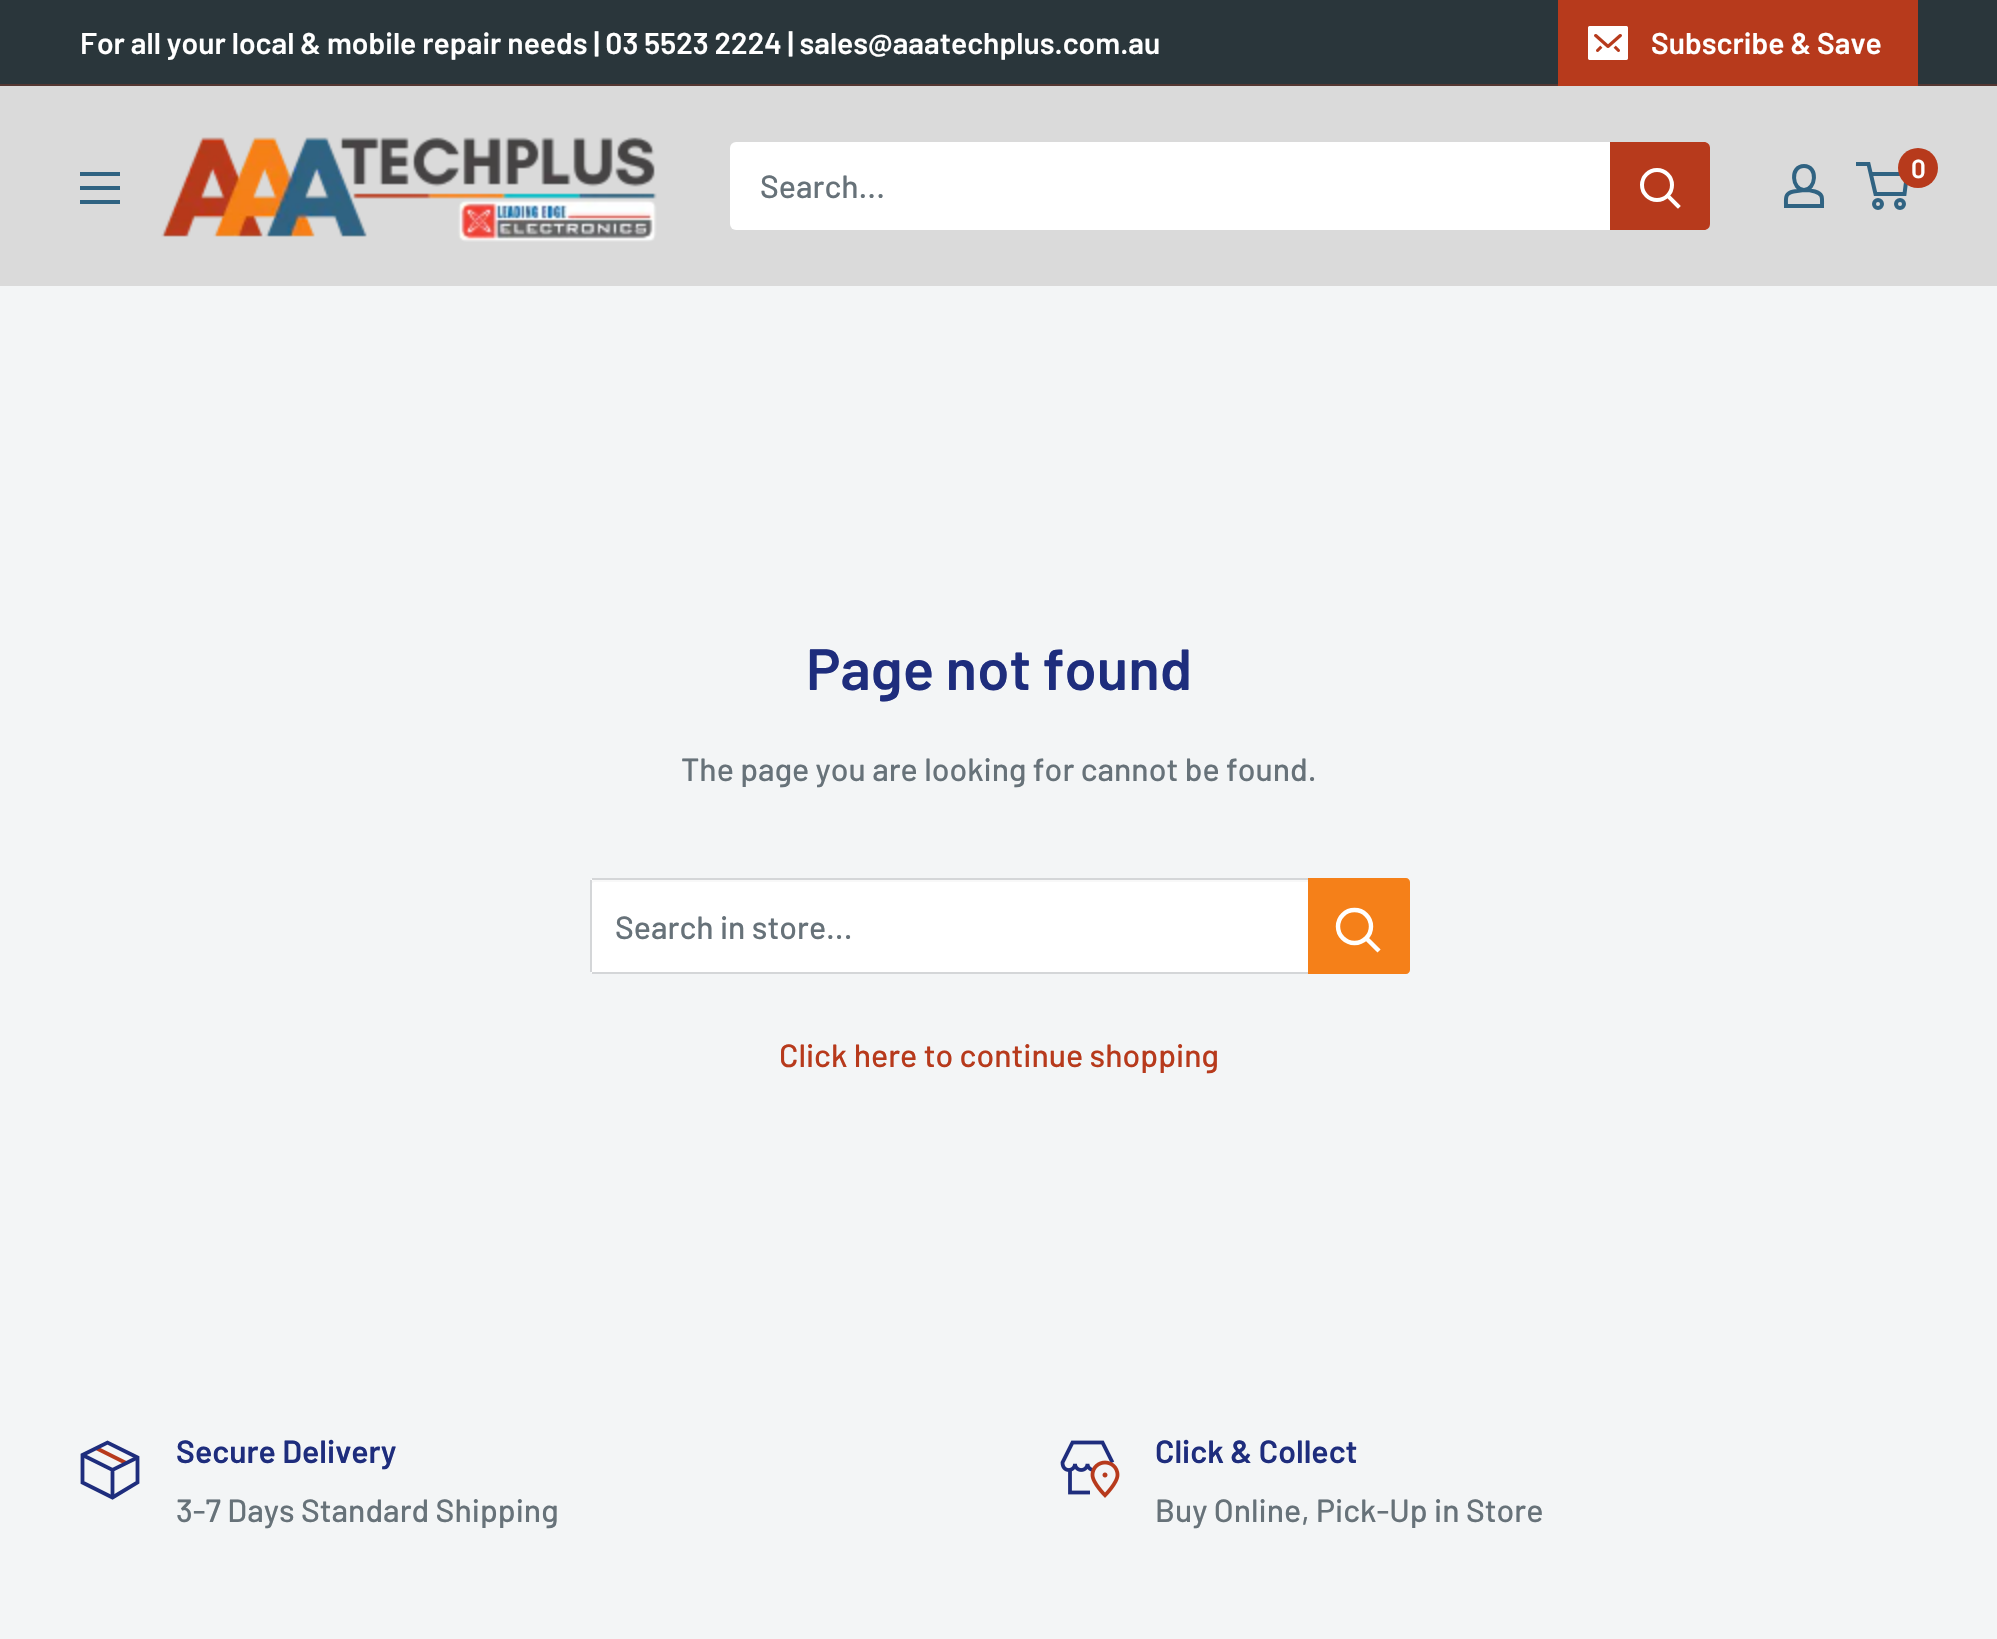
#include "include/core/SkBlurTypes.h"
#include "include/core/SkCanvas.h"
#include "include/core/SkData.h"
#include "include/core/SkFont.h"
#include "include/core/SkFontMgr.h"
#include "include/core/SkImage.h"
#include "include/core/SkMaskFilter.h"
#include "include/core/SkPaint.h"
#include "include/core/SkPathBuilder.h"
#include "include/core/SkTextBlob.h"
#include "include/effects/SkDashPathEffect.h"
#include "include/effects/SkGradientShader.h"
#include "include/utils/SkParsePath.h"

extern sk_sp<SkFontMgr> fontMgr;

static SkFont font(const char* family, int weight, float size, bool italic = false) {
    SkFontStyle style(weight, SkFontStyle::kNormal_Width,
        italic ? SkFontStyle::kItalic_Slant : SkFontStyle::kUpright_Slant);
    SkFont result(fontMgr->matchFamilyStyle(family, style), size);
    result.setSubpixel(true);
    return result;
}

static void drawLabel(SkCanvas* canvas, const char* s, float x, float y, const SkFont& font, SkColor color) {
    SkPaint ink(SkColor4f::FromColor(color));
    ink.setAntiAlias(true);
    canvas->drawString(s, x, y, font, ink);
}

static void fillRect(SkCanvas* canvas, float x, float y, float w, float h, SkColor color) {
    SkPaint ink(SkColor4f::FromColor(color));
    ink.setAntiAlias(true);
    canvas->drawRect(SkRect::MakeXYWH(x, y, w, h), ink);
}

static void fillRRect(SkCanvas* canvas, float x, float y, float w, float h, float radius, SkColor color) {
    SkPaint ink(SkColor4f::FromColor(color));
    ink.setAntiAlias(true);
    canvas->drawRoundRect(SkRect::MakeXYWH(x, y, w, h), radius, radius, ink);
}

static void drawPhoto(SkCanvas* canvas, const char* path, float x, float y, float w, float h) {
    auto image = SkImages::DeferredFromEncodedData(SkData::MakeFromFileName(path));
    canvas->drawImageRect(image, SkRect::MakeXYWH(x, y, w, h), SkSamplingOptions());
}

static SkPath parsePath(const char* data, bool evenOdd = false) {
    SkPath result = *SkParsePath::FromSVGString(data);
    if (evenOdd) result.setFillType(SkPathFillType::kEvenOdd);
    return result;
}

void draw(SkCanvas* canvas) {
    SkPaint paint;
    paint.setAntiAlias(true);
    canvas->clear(0xFFF3F5F6);
    fillRect(canvas, 0, 0, 1997, 84, 0xFF2A363B);
    fillRect(canvas, 0, 84, 1997, 2, 0xFF543732);
    SkFont font1 = font("Barlow", 600, 30);
    drawLabel(canvas, "For all your local & mobile repair needs | 03 5523 2224 | sales@aaatechplus.com.au", 80, 54, font1, 0xFFFFFFFF);
    fillRect(canvas, 1558, 0, 360, 86, 0xFFB73A1C);
    drawPhoto(canvas, "assets/img1.png", 1588, 26, 40, 34);
    drawLabel(canvas, "Subscribe & Save", 1651, 54, font1, 0xFFFFFFFF);
    fillRect(canvas, 0, 86, 1997, 200, 0xFFDADADA);
    drawPhoto(canvas, "assets/img2.png", 161, 137, 496, 105);
    paint.setStroke(true);
    paint.setStrokeWidth(4);
    paint.setColor(0xFF306382);
    canvas->drawPath(parsePath("M1804 190C1808 190 1811.5 190.5 1815 191.5C1823.5 194 1822 198.5 1822 206H1786C1786 198 1784.5 193.5 1793.5 191.5ZM1804 190C1792 190 1789.5 166 1804 166C1818.5 166 1816 190 1804 190Z"), paint);
    canvas->drawCircle(1878, 204, 4, paint);
    canvas->drawCircle(1900, 204, 4, paint);
    canvas->drawPath(parsePath("M1870.5 174H1907L1904.5 194H1875.5L1868.5 164H1856"), paint);
    paint.setStroke(false);
    paint.setColor(0xFFB73A1C);
    canvas->drawCircle(1918, 168, 20, paint);
    SkFont font2 = font("Barlow", 600, 26);
    drawLabel(canvas, "0", 1911, 178, font2, 0xFFFFFFFF);
    paint.setColor(0xFF306382);
    canvas->drawPath(parsePath("M80 200H120V204H80ZM80 172H120V176H80ZM80 186H120V190H80Z", true), paint);
    fillRRect(canvas, 730, 142, 980, 88, 6, 0xFFFFFFFF);
    SkFont font3 = font("Barlow", 500, 32);
    drawLabel(canvas, "Search...", 760, 198, font3, 0xFF677279);
    paint.setColor(0xFFB73A1C);
    canvas->drawPath(parsePath("M1610 142H1704C1707.5 142 1710 144.5 1710 148V224C1710 227.5 1707.5 230 1704 230H1610Z"), paint);
    paint.setStroke(true);
    paint.setStrokeCap(SkPaint::kSquare_Cap);
    paint.setColor(0xFFFFFFFF);
    canvas->drawPath(parsePath("M1678 206L1668 196"), paint);
    paint.setStrokeCap(SkPaint::kButt_Cap);
    canvas->drawCircle(1657, 185, 15, paint);
    SkFont font4 = font("Barlow", 600, 58);
    drawLabel(canvas, "Page not found", 806, 690, font4, 0xFF1E2D7D);
    drawLabel(canvas, "The page you are looking for cannot be found.", 681, 781, font3, 0xFF677279);
    paint.setStroke(false);
    canvas->drawPath(parsePath("M594 878H1308V974H594C592 974 590 972 590 970V882C590 880 592 878 594 878Z"), paint);
    paint.setColor(0xFFF8F8F8);
    canvas->drawPath(parsePath("M594 882H1308V880H594L592 881V884C592 883 593 882 594 882Z"), paint);
    fillRect(canvas, 592, 878, 716, 2, 0xFFD4D6D8);
    fillRect(canvas, 592, 972, 716, 2, 0xFFD4D6D8);
    fillRect(canvas, 590, 880, 2, 92, 0xFFD4D6D8);
    drawLabel(canvas, "Search in store...", 615, 939, font3, 0xFF677279);
    paint.setColor(0xFFF58019);
    canvas->drawPath(parsePath("M1308 878H1406C1408 878 1410 880 1410 882V970C1410 972 1408 974 1406 974H1308Z"), paint);
    paint.setStroke(true);
    paint.setStrokeWidth(4.4f);
    paint.setStrokeCap(SkPaint::kSquare_Cap);
    paint.setColor(0xFFFFFFFF);
    canvas->drawPath(parsePath("M1377.5 949.5L1366.5 938.5"), paint);
    paint.setStrokeCap(SkPaint::kButt_Cap);
    canvas->drawCircle(1354.5f, 926.5f, 16.5f, paint);
    drawLabel(canvas, "Click here to continue shopping", 779, 1067, font3, 0xFFB73A1C);
    paint.setStrokeWidth(3.8f);
    paint.setColor(0xFFB73A1C);
    canvas->drawPath(parsePath("M96 1448L126 1463"), paint);
    paint.setColor(0xFF1E2D7D);
    canvas->drawPath(parsePath("M137.5 1457.5L112.5 1470L82.5 1455M112.5 1470V1497.5"), paint);
    paint.setStrokeCap(SkPaint::kSquare_Cap);
    canvas->drawPath(parsePath("M137.5 1457.5V1482.5L112.5 1497.5L82.5 1482.5V1455L107.5 1442.5Z"), paint);
    SkFont font5 = font("Barlow", 600, 32);
    drawLabel(canvas, "Secure Delivery", 176, 1463, font5, 0xFF1E2D7D);
    drawLabel(canvas, "3-7 Days Standard Shipping", 176, 1522, font3, 0xFF677279);
    drawPhoto(canvas, "assets/img3.png", 1060, 1440, 60, 58);
    drawLabel(canvas, "Click & Collect", 1155, 1463, font5, 0xFF1E2D7D);
    drawLabel(canvas, "Buy Online, Pick-Up in Store", 1155, 1522, font3, 0xFF677279);
}
